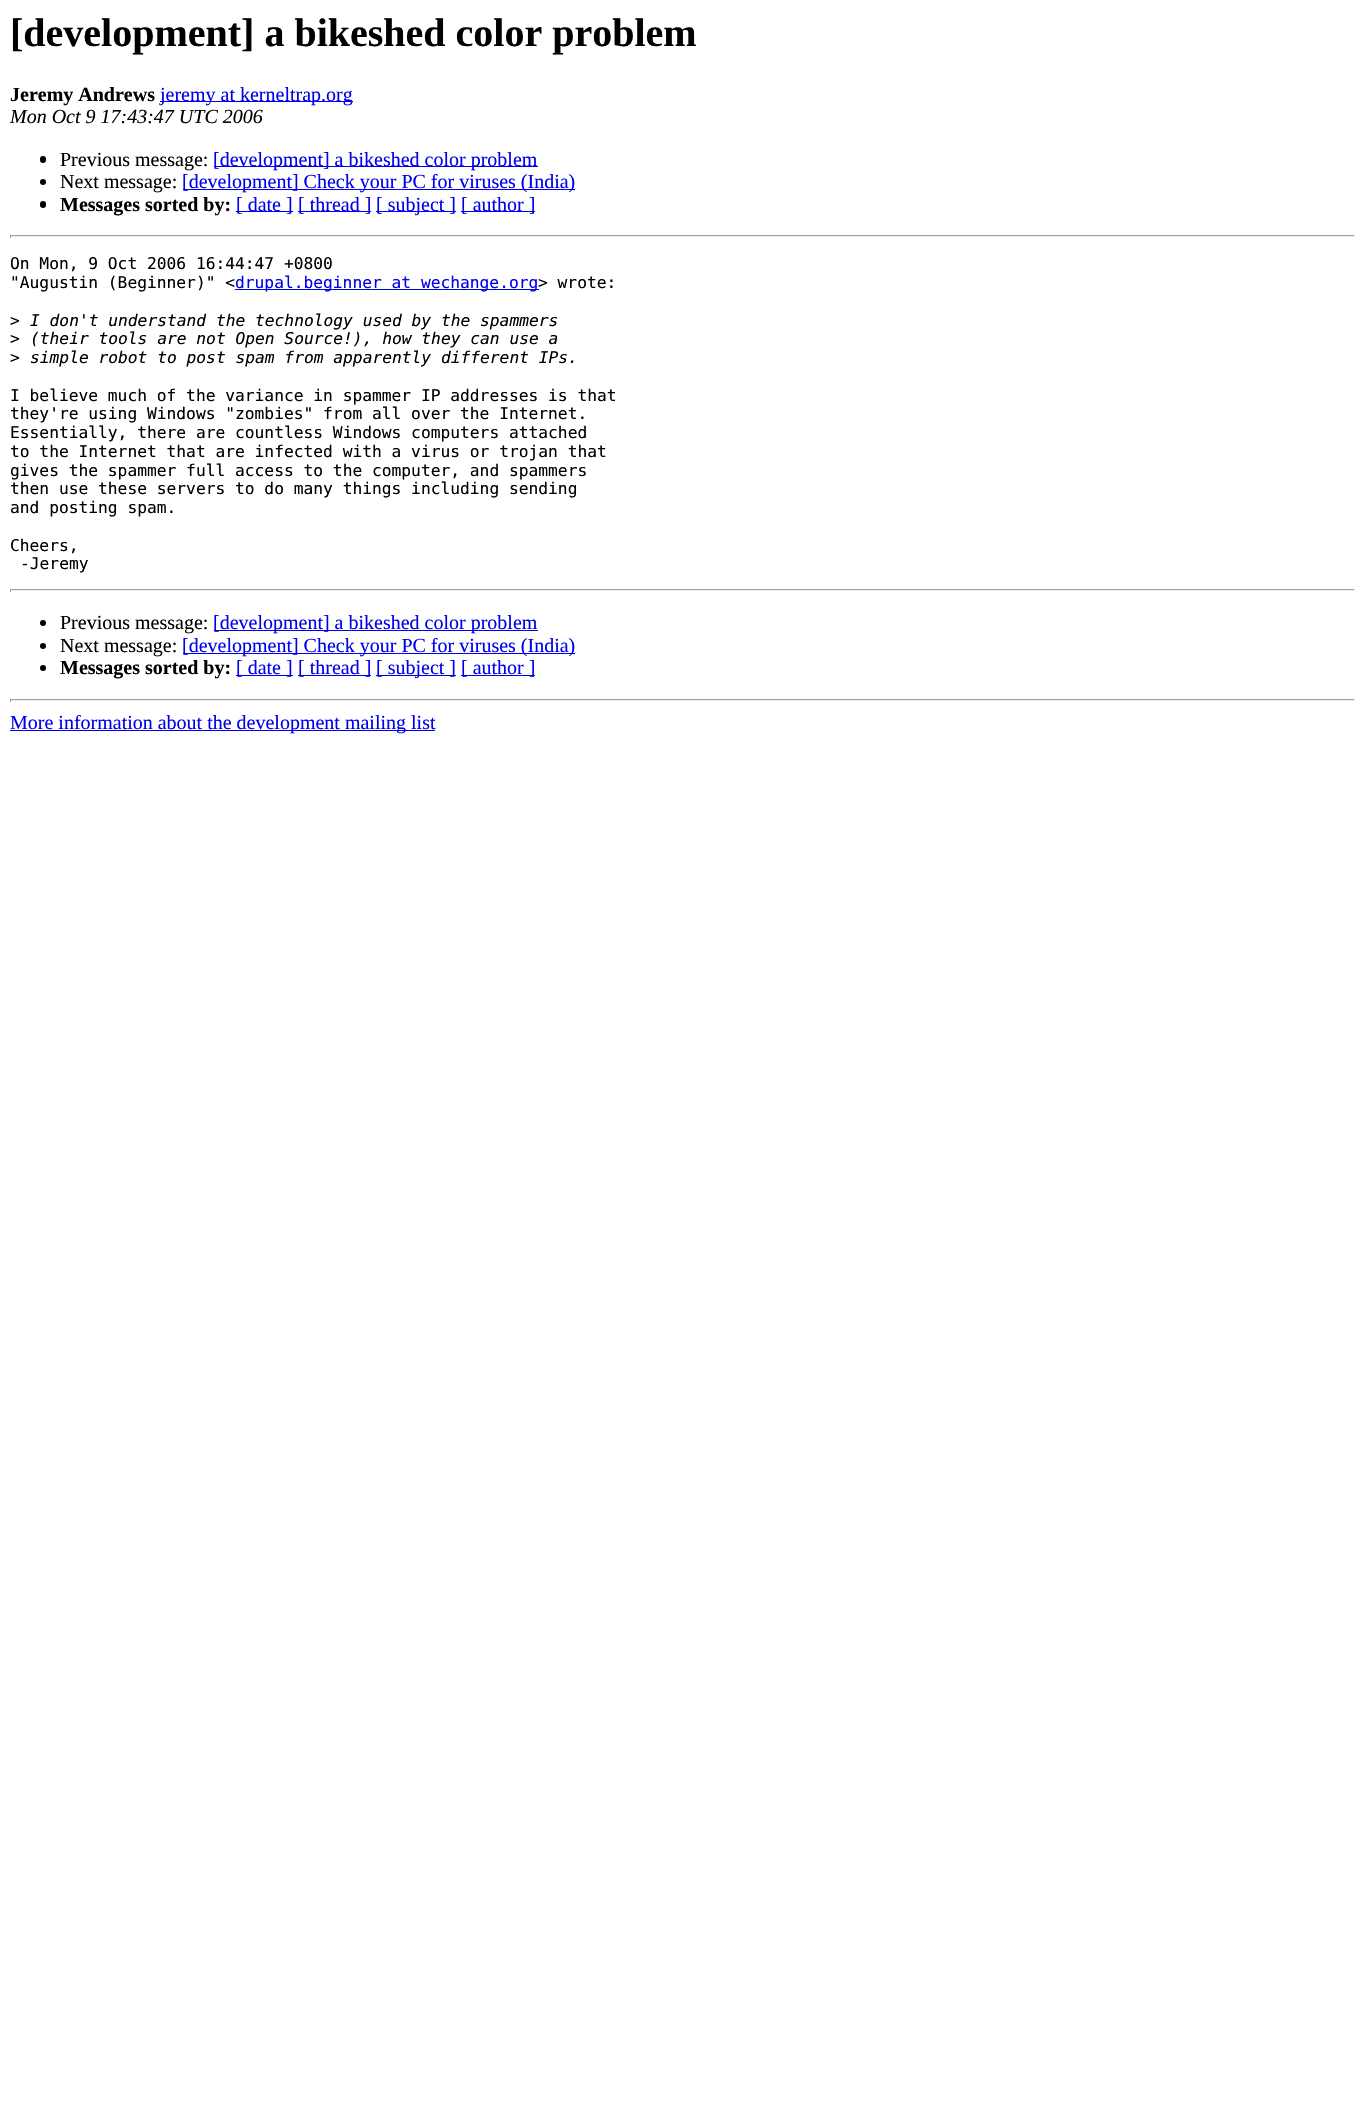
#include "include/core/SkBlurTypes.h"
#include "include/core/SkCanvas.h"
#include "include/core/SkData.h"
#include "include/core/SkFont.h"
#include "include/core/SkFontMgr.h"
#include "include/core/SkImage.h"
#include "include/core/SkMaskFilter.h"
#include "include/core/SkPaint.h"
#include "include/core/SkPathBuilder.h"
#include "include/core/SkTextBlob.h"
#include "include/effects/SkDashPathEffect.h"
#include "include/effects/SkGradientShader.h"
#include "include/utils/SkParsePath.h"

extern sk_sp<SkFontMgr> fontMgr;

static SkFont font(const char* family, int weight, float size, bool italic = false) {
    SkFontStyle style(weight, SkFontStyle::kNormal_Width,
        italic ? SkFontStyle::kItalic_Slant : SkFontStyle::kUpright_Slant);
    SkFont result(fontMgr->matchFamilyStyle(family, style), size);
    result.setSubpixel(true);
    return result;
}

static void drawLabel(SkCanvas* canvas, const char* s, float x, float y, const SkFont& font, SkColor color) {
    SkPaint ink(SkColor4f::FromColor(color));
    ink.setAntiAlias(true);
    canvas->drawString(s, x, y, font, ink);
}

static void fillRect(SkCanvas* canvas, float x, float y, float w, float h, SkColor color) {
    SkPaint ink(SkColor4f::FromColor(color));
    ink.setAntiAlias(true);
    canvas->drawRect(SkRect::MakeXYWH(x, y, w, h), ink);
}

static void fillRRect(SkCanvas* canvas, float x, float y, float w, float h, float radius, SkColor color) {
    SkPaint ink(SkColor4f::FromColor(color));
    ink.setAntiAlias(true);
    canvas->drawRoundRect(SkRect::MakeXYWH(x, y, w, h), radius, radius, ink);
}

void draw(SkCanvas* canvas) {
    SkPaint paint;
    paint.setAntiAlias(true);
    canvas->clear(0xFFFFFFFF);
    SkFont font1 = font("Liberation Serif", 700, 40);
    drawLabel(canvas, "[development] a bikeshed color problem", 10, 46, font1, 0xFF000000);
    SkFont font2 = font("Liberation Serif", 700, 20);
    drawLabel(canvas, "Jeremy Andrews", 10, 101, font2, 0xFF000000);
    fillRect(canvas, 160, 101, 193, 1, 0xFF0000EE);
    SkFont font3 = font("Liberation Serif", 400, 20);
    drawLabel(canvas, "jeremy at kerneltrap.org", 160, 101, font3, 0xFF0000EE);
    SkFont font4 = font("Liberation Serif", 400, 20, true);
    drawLabel(canvas, "Mon Oct 9 17:43:47 UTC 2006", 10, 123, font4, 0xFF000000);
    fillRRect(canvas, 40, 156, 6, 7, 3, 0xFF000000);
    drawLabel(canvas, "Previous message:", 60, 166, font3, 0xFF000000);
    fillRect(canvas, 214, 166, 324, 1, 0xFF0000EE);
    drawLabel(canvas, "[development] a bikeshed color problem", 213, 166, font3, 0xFF0000EE);
    paint.setColor(0xFF000000);
    canvas->drawCircle(43, 182, 3, paint);
    drawLabel(canvas, "Next message:", 60, 188, font3, 0xFF000000);
    fillRect(canvas, 183, 189, 392, 1, 0xFF0000EE);
    drawLabel(canvas, "[development] Check your PC for viruses (India)", 182, 188, font3, 0xFF0000EE);
    fillRRect(canvas, 40, 201, 6, 7, 3, 0xFF000000);
    drawLabel(canvas, "Messages sorted by:", 60, 211, font2, 0xFF000000);
    fillRect(canvas, 236, 211, 57, 1, 0xFF0000EE);
    drawLabel(canvas, "[ date ]", 236, 211, font3, 0xFF0000EE);
    fillRect(canvas, 298, 211, 73, 1, 0xFF0000EE);
    drawLabel(canvas, "[ thread ]", 298, 211, font3, 0xFF0000EE);
    fillRect(canvas, 376, 211, 80, 1, 0xFF0000EE);
    drawLabel(canvas, "[ subject ]", 376, 211, font3, 0xFF0000EE);
    fillRect(canvas, 461, 211, 74, 1, 0xFF0000EE);
    drawLabel(canvas, "[ author ]", 461, 211, font3, 0xFF0000EE);
    fillRect(canvas, 10, 235, 1345, 1, 0xFF9F9F9F);
    fillRect(canvas, 1354, 235, 1, 3, 0xFFEEEEEE);
    fillRect(canvas, 10, 236, 1345, 1, 0xFFEEEEEE);
    fillRect(canvas, 10, 235, 1, 3, 0xFF9F9F9F);
    SkFont font5 = font("DejaVu Sans Mono", 400, 16.25f);
    drawLabel(canvas, "On Mon, 9 Oct 2006 16:44:47 +0800", 10, 269, font5, 0xFF000000);
    drawLabel(canvas, "\"Augustin (Beginner)\" <", 10, 288, font5, 0xFF000000);
    fillRect(canvas, 235, 289, 304, 1, 0xFF0000EE);
    drawLabel(canvas, "drupal.beginner at wechange.org", 235, 288, font5, 0xFF0000EE);
    drawLabel(canvas, "> wrote:", 538, 288, font5, 0xFF000000);
    drawLabel(canvas, ">", 10, 326, font5, 0xFF000000);
    SkFont font6 = font("DejaVu Sans Mono", 400, 16.25f, true);
    drawLabel(canvas, "I don't understand the technology used by the spammers", 30, 326, font6, 0xFF000000);
    drawLabel(canvas, ">", 10, 344, font5, 0xFF000000);
    drawLabel(canvas, "(their tools are not Open Source!), how they can use a", 30, 344, font6, 0xFF000000);
    drawLabel(canvas, ">", 10, 363, font5, 0xFF000000);
    drawLabel(canvas, "simple robot to post spam from apparently different IPs.", 30, 363, font6, 0xFF000000);
    drawLabel(canvas, "I believe much of the variance in spammer IP addresses is that", 10, 401, font5, 0xFF000000);
    drawLabel(canvas, "they're using Windows \"zombies\" from all over the Internet.", 10, 419, font5, 0xFF000000);
    drawLabel(canvas, "Essentially, there are countless Windows computers attached", 10, 438, font5, 0xFF000000);
    drawLabel(canvas, "to the Internet that are infected with a virus or trojan that", 10, 457, font5, 0xFF000000);
    drawLabel(canvas, "gives the spammer full access to the computer, and spammers", 10, 476, font5, 0xFF000000);
    drawLabel(canvas, "then use these servers to do many things including sending", 10, 494, font5, 0xFF000000);
    drawLabel(canvas, "and posting spam.", 10, 513, font5, 0xFF000000);
    drawLabel(canvas, "Cheers,", 10, 551, font5, 0xFF000000);
    drawLabel(canvas, "-Jeremy", 20, 569, font5, 0xFF000000);
    fillRect(canvas, 10, 589, 1345, 1, 0xFF9F9F9F);
    fillRect(canvas, 1354, 589, 1, 3, 0xFFEEEEEE);
    fillRect(canvas, 10, 590, 1345, 1, 0xFFEEEEEE);
    fillRect(canvas, 10, 589, 1, 3, 0xFF9F9F9F);
    canvas->drawCircle(43, 623, 3, paint);
    drawLabel(canvas, "Previous message:", 60, 629, font3, 0xFF000000);
    fillRect(canvas, 214, 630, 324, 1, 0xFF0000EE);
    drawLabel(canvas, "[development] a bikeshed color problem", 213, 629, font3, 0xFF0000EE);
    canvas->drawCircle(43, 646, 3, paint);
    drawLabel(canvas, "Next message:", 60, 652, font3, 0xFF000000);
    fillRect(canvas, 183, 653, 392, 1, 0xFF0000EE);
    drawLabel(canvas, "[development] Check your PC for viruses (India)", 182, 652, font3, 0xFF0000EE);
    canvas->drawCircle(43, 668, 3, paint);
    drawLabel(canvas, "Messages sorted by:", 60, 674, font2, 0xFF000000);
    fillRect(canvas, 236, 675, 57, 1, 0xFF0000EE);
    drawLabel(canvas, "[ date ]", 236, 674, font3, 0xFF0000EE);
    fillRect(canvas, 298, 675, 73, 1, 0xFF0000EE);
    drawLabel(canvas, "[ thread ]", 298, 674, font3, 0xFF0000EE);
    fillRect(canvas, 376, 675, 80, 1, 0xFF0000EE);
    drawLabel(canvas, "[ subject ]", 376, 674, font3, 0xFF0000EE);
    fillRect(canvas, 461, 675, 74, 1, 0xFF0000EE);
    drawLabel(canvas, "[ author ]", 461, 674, font3, 0xFF0000EE);
    fillRect(canvas, 10, 699, 1345, 1, 0xFF9F9F9F);
    fillRect(canvas, 1354, 699, 1, 3, 0xFFEEEEEE);
    fillRect(canvas, 10, 700, 1345, 1, 0xFFEEEEEE);
    fillRect(canvas, 10, 699, 1, 3, 0xFF9F9F9F);
    fillRect(canvas, 10, 730, 425, 1, 0xFF0000EE);
    drawLabel(canvas, "More information about the development mailing list", 10, 729, font3, 0xFF0000EE);
}
